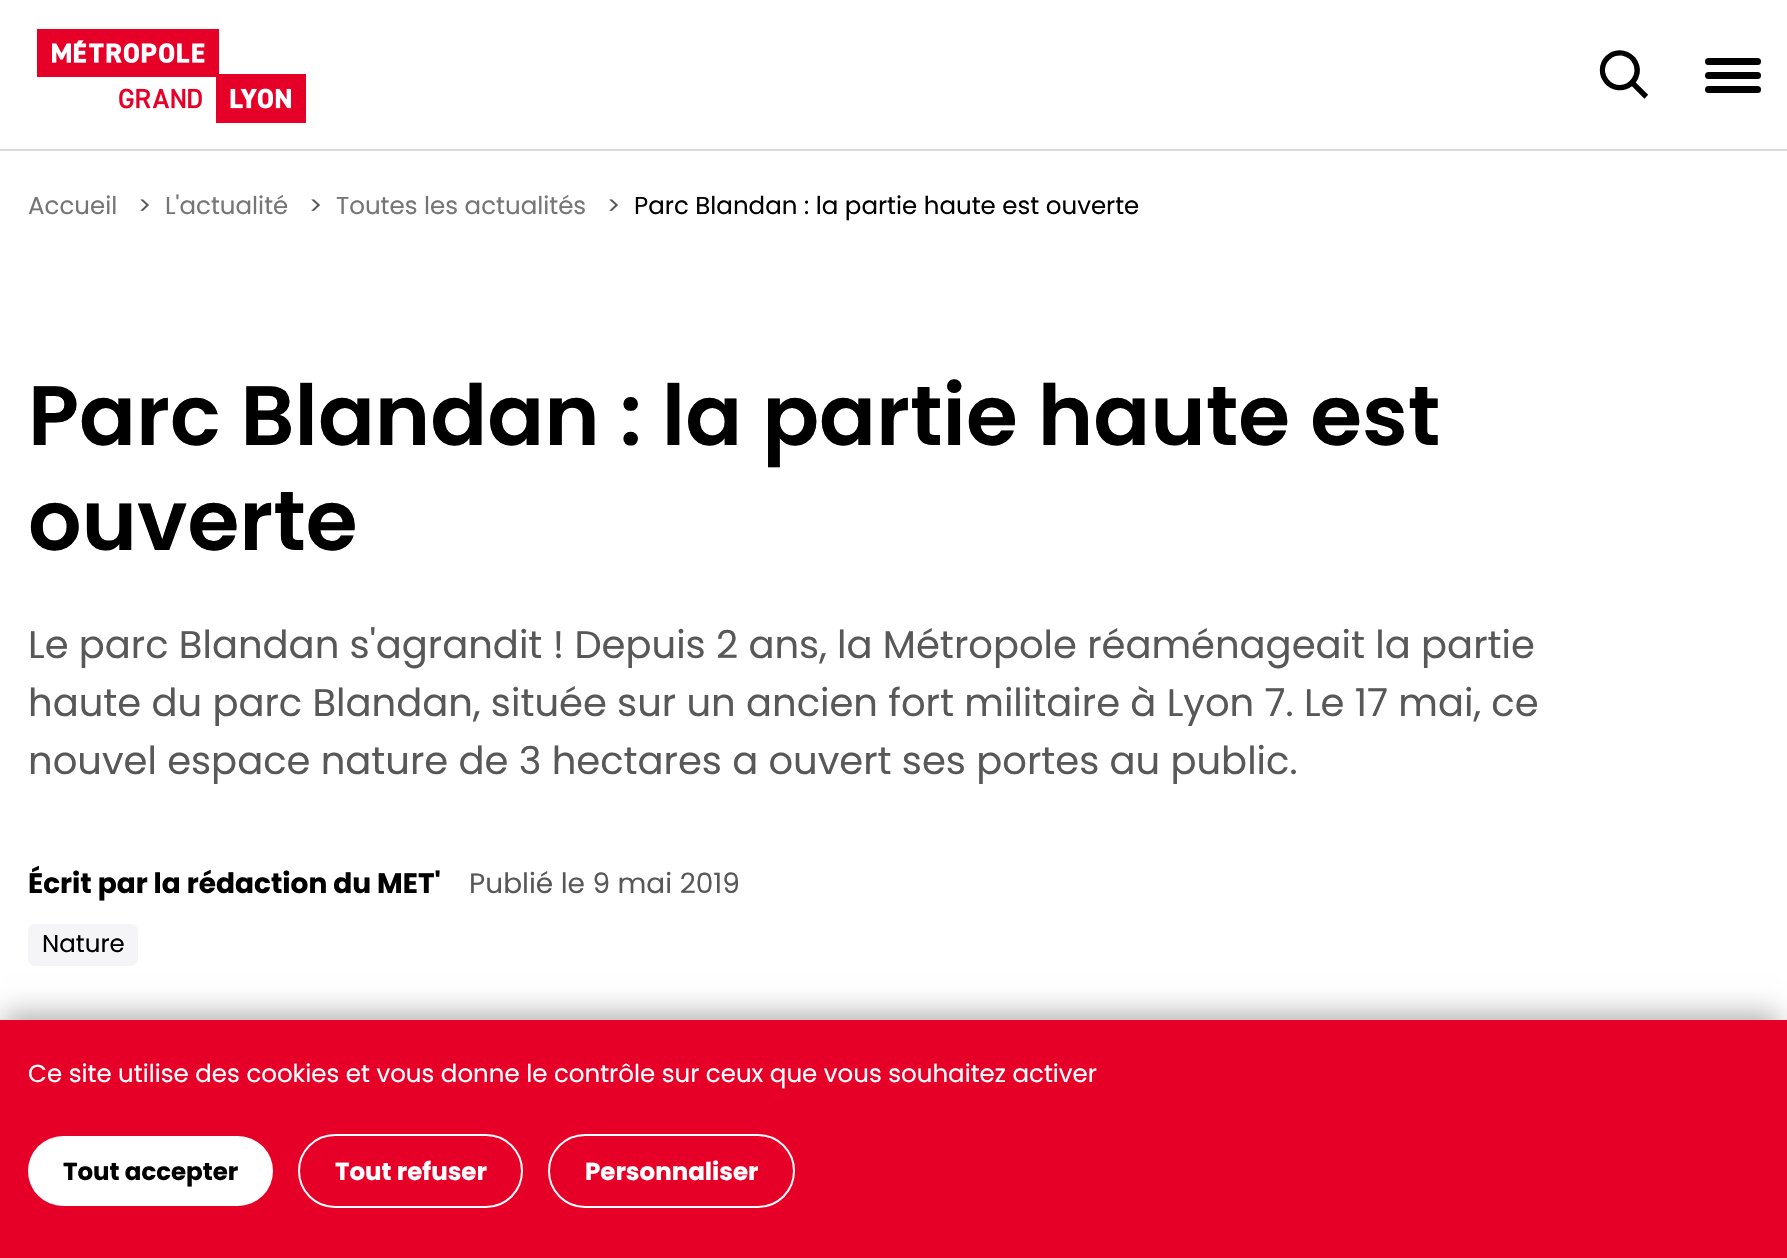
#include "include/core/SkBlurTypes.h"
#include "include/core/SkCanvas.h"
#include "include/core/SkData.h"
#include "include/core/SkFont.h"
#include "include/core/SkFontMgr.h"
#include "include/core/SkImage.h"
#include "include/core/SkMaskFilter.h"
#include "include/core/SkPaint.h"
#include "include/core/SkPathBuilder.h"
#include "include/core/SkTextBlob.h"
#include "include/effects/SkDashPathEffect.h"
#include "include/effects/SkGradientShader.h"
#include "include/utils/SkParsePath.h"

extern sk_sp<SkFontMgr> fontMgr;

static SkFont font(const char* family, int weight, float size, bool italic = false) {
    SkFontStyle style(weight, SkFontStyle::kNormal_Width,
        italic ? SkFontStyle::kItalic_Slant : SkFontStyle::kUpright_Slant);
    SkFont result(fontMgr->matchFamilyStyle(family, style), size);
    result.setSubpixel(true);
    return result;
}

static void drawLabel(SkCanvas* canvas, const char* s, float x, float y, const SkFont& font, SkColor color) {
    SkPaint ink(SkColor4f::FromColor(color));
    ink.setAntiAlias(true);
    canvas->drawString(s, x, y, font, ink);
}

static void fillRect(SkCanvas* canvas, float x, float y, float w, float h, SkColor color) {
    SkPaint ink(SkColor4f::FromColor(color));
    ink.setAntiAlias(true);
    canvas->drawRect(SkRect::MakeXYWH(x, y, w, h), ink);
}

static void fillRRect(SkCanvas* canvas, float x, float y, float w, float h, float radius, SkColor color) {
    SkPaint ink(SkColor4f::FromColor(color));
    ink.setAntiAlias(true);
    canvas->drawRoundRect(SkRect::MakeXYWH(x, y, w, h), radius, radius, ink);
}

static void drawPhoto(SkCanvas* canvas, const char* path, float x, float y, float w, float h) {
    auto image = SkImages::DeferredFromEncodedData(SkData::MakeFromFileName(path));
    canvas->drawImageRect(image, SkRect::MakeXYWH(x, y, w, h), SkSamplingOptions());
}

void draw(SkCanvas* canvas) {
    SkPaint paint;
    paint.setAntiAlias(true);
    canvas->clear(0xFFFFFFFF);
    fillRect(canvas, 0, 149, 1787, 2, 0xFFDADADA);
    drawPhoto(canvas, "assets/img1.png", 37, 29, 269, 94);
    drawPhoto(canvas, "assets/img2.png", 1599, 50, 49, 49);
    fillRRect(canvas, 1705, 58, 56, 7, 3.5f, 0xFF000000);
    fillRRect(canvas, 1705, 72, 56, 7, 3.5f, 0xFF000000);
    fillRRect(canvas, 1705, 86, 56, 7, 3.5f, 0xFF000000);
    SkFont font1 = font("Poppins", 400, 24.5f);
    drawLabel(canvas, "Accueil", 28, 214, font1, 0xFF757575);
    drawLabel(canvas, ">", 138, 214, font1, 0xFF585858);
    drawLabel(canvas, "L'actualité", 165, 214, font1, 0xFF757575);
    drawLabel(canvas, ">", 309, 214, font1, 0xFF585858);
    drawLabel(canvas, "Toutes les actualités", 336, 214, font1, 0xFF757575);
    drawLabel(canvas, ">", 607, 214, font1, 0xFF585858);
    drawLabel(canvas, "Parc Blandan : la partie haute est ouverte", 634, 214, font1, 0xFF000000);
    SkFont font2 = font("Poppins", 600, 84);
    drawLabel(canvas, "Parc Blandan : la partie haute est", 28, 445, font2, 0xFF000000);
    drawLabel(canvas, "ouverte", 28, 550, font2, 0xFF000000);
    SkFont font3 = font("Poppins", 400, 38.5f);
    drawLabel(canvas, "Le parc Blandan s'agrandit ! Depuis 2 ans, la Métropole réaménageait la partie", 28, 658, font3, 0xFF585858);
    drawLabel(canvas, "haute du parc Blandan, située sur un ancien fort militaire à Lyon 7. Le 17 mai, ce", 28, 716, font3, 0xFF585858);
    drawLabel(canvas, "nouvel espace nature de 3 hectares a ouvert ses portes au public.", 28, 774, font3, 0xFF585858);
    SkFont font4 = font("Poppins", 700, 28);
    drawLabel(canvas, "Écrit par la rédaction du MET'", 28, 893, font4, 0xFF000000);
    SkFont font5 = font("Poppins", 400, 28);
    drawLabel(canvas, "Publié le 9 mai 2019", 469, 893, font5, 0xFF585858);
    fillRRect(canvas, 28, 924, 110, 42, 7, 0xFFF5F5F7);
    drawLabel(canvas, "Nature", 42, 952, font1, 0xFF000000);
    paint.setColor(0x4D000000);
    paint.setMaskFilter(SkMaskFilter::MakeBlur(kNormal_SkBlurStyle, 13));
    canvas->drawRect(SkRect::MakeXYWH(4, 1013, 1774, 224), paint);
    paint.setMaskFilter(nullptr);
    fillRect(canvas, 0, 1020, 1787, 238, 0xFFE60028);
    drawLabel(canvas, "Ce site utilise des cookies et vous donne le contrôle sur ceux que vous souhaitez activer", 28, 1082, font1, 0xFFFFFFFF);
    fillRRect(canvas, 28, 1136, 245, 70, 35, 0xFFFFFFFF);
    SkFont font6 = font("Poppins", 700, 24.5f);
    drawLabel(canvas, "Tout accepter", 63, 1180, font6, 0xFF000000);
    paint.setStroke(true);
    paint.setStrokeWidth(2);
    paint.setColor(0xFFFFFFFF);
    canvas->drawRoundRect(SkRect::MakeXYWH(299, 1135, 223, 72), 36, 36, paint);
    drawLabel(canvas, "Tout refuser", 335, 1180, font6, 0xFFFFFFFF);
    canvas->drawRoundRect(SkRect::MakeXYWH(549, 1135, 245, 72), 36, 36, paint);
    drawLabel(canvas, "Personnaliser", 585, 1180, font6, 0xFFFFFFFF);
}
